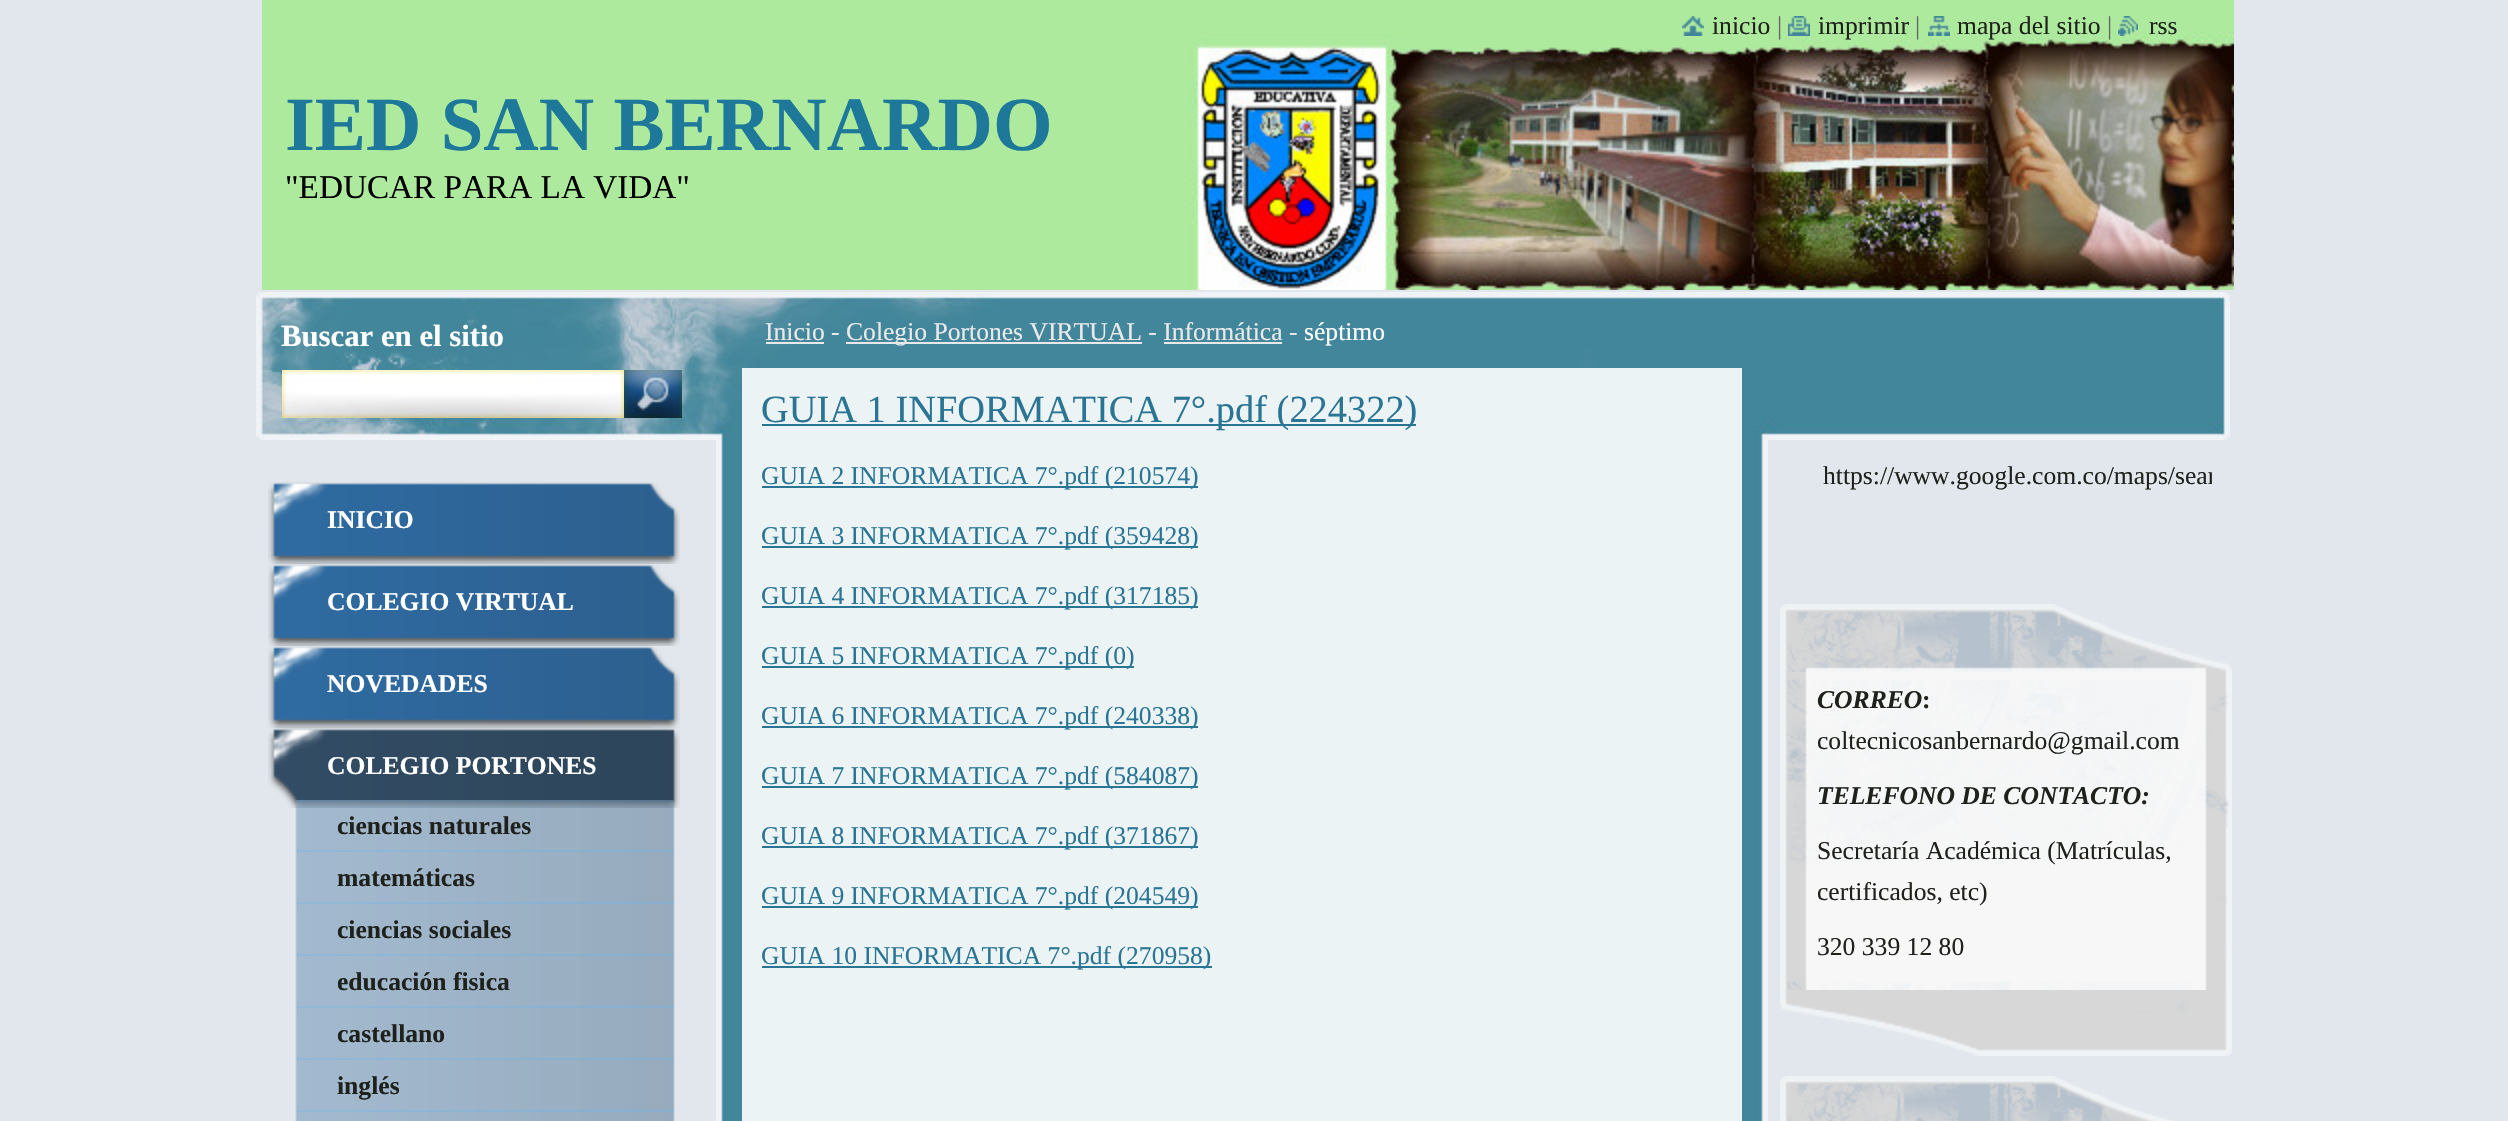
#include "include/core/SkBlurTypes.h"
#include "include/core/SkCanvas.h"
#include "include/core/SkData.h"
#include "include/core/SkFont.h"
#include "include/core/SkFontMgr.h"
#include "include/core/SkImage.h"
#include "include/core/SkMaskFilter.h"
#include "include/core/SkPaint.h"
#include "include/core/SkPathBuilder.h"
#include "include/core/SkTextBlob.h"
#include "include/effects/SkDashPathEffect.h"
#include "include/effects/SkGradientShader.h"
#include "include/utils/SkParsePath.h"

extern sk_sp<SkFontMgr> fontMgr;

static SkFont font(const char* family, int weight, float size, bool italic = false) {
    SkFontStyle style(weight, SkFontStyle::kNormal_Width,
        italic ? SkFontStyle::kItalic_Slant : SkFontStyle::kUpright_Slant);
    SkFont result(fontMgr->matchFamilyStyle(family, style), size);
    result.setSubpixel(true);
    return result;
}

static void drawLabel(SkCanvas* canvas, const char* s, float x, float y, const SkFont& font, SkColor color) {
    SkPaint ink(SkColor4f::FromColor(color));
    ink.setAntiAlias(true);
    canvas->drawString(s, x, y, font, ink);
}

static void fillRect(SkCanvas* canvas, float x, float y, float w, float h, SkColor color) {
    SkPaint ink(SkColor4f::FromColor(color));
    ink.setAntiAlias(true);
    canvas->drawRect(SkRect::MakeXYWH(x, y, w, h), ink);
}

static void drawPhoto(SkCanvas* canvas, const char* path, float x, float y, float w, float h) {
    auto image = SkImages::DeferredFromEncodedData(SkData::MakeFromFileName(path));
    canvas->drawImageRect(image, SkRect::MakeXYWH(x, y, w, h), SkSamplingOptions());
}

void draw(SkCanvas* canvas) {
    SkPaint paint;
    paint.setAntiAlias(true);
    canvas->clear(0xFFE1E7EC);
    drawPhoto(canvas, "assets/img5.png", 262, 0, 1972, 290);
    drawPhoto(canvas, "assets/img1.png", 1682, 16, 22, 20);
    SkFont font1 = font("Liberation Serif", 400, 25.6f);
    drawLabel(canvas, "inicio", 1712, 34, font1, 0xFF1F221C);
    drawLabel(canvas, "|", 1777, 34, font1, 0xFF646464);
    drawPhoto(canvas, "assets/img2.png", 1788, 16, 22, 20);
    drawLabel(canvas, "imprimir", 1818, 34, font1, 0xFF1F221C);
    drawLabel(canvas, "|", 1915, 34, font1, 0xFF646464);
    drawPhoto(canvas, "assets/img3.png", 1928, 16, 22, 20);
    drawLabel(canvas, "mapa del sitio", 1957, 34, font1, 0xFF1F221C);
    drawLabel(canvas, "|", 2107, 34, font1, 0xFF646464);
    drawPhoto(canvas, "assets/img4.png", 2118, 16, 20, 20);
    drawLabel(canvas, "rss", 2149, 34, font1, 0xFF1F221C);
    SkFont font2 = font("Liberation Serif", 700, 76.75f);
    drawLabel(canvas, "IED SAN BERNARDO", 285, 150, font2, 0xFF1D789A);
    SkFont font3 = font("Liberation Serif", 400, 33.25f);
    drawLabel(canvas, "\"EDUCAR PARA LA VIDA\"", 285, 198, font3, 0xFF000000);
    drawPhoto(canvas, "assets/img6.png", 256, 292, 1974, 148);
    SkFont font4 = font("Liberation Serif", 700, 30.75f);
    drawLabel(canvas, "Buscar en el sitio", 281, 346, font4, 0xFFFFFFFF);
    drawPhoto(canvas, "assets/img7.png", 282, 370, 342, 48);
    drawPhoto(canvas, "assets/img8.png", 624, 370, 58, 48);
    drawPhoto(canvas, "assets/img9.png", 716, 437, 1052, 684);
    drawPhoto(canvas, "assets/img10.png", 716, 292, 1052, 145);
    drawLabel(canvas, "Inicio -", 765, 340, font1, 0xFFE9E9E9);
    fillRect(canvas, 766, 342, 58, 2, 0xFFE9E9E9);
    fillRect(canvas, 846, 342, 296, 2, 0xFFE9E9E9);
    drawLabel(canvas, "Colegio Portones VIRTUAL - Informática -", 846, 340, font1, 0xFFE9E9E9);
    drawLabel(canvas, "séptimo", 1304, 340, font1, 0xFFFFFFFF);
    fillRect(canvas, 1164, 342, 118, 2, 0xFFE9E9E9);
    fillRect(canvas, 742, 368, 1000, 753, 0xFFECF3F5);
    fillRect(canvas, 762, 424, 654, 2, 0xFF2A7594);
    SkFont font5 = font("Liberation Serif", 400, 38.4f);
    drawLabel(canvas, "GUIA 1 INFORMATICA 7°.pdf (224322)", 761, 422, font5, 0xFF2A7594);
    fillRect(canvas, 762, 486, 436, 2, 0xFF2A7594);
    drawLabel(canvas, "GUIA 2 INFORMATICA 7°.pdf (210574)", 761, 484, font1, 0xFF2A7594);
    fillRect(canvas, 762, 546, 436, 2, 0xFF2A7594);
    drawLabel(canvas, "GUIA 3 INFORMATICA 7°.pdf (359428)", 761, 544, font1, 0xFF2A7594);
    fillRect(canvas, 762, 606, 436, 2, 0xFF2A7594);
    drawLabel(canvas, "GUIA 4 INFORMATICA 7°.pdf (317185)", 761, 604, font1, 0xFF2A7594);
    fillRect(canvas, 762, 666, 372, 2, 0xFF2A7594);
    drawLabel(canvas, "GUIA 5 INFORMATICA 7°.pdf (0)", 761, 664, font1, 0xFF2A7594);
    fillRect(canvas, 762, 726, 436, 2, 0xFF2A7594);
    drawLabel(canvas, "GUIA 6 INFORMATICA 7°.pdf (240338)", 761, 724, font1, 0xFF2A7594);
    fillRect(canvas, 762, 786, 436, 2, 0xFF2A7594);
    drawLabel(canvas, "GUIA 7 INFORMATICA 7°.pdf (584087)", 761, 784, font1, 0xFF2A7594);
    fillRect(canvas, 762, 846, 436, 2, 0xFF2A7594);
    drawLabel(canvas, "GUIA 8 INFORMATICA 7°.pdf (371867)", 761, 844, font1, 0xFF2A7594);
    fillRect(canvas, 762, 906, 436, 2, 0xFF2A7594);
    drawLabel(canvas, "GUIA 9 INFORMATICA 7°.pdf (204549)", 761, 904, font1, 0xFF2A7594);
    fillRect(canvas, 762, 966, 450, 2, 0xFF2A7594);
    drawLabel(canvas, "GUIA 10 INFORMATICA 7°.pdf (270958)", 761, 964, font1, 0xFF2A7594);
    drawPhoto(canvas, "assets/img11.png", 268, 482, 412, 82);
    SkFont font6 = font("Liberation Serif", 700, 25.6f);
    drawLabel(canvas, "INICIO", 327, 528, font6, 0xFFFFFFFF);
    drawPhoto(canvas, "assets/img11.png", 268, 564, 412, 82);
    drawLabel(canvas, "COLEGIO VIRTUAL", 327, 610, font6, 0xFFFFFFFF);
    drawPhoto(canvas, "assets/img11.png", 268, 646, 412, 82);
    drawLabel(canvas, "NOVEDADES", 327, 692, font6, 0xFFFFFFFF);
    drawPhoto(canvas, "assets/img12.png", 268, 728, 412, 80);
    drawLabel(canvas, "COLEGIO PORTONES", 327, 774, font6, 0xFFFFFFFF);
    drawPhoto(canvas, "assets/img13.png", 295, 800, 380, 52);
    drawLabel(canvas, "ciencias naturales", 337, 834, font6, 0xFF1F221C);
    drawPhoto(canvas, "assets/img14.png", 295, 852, 380, 52);
    drawLabel(canvas, "matemáticas", 337, 886, font6, 0xFF1F221C);
    drawPhoto(canvas, "assets/img14.png", 295, 904, 380, 52);
    drawLabel(canvas, "ciencias sociales", 337, 938, font6, 0xFF1F221C);
    drawPhoto(canvas, "assets/img14.png", 295, 956, 380, 52);
    drawLabel(canvas, "educación fisica", 337, 990, font6, 0xFF1F221C);
    drawPhoto(canvas, "assets/img14.png", 295, 1008, 380, 52);
    drawLabel(canvas, "castellano", 337, 1042, font6, 0xFF1F221C);
    drawPhoto(canvas, "assets/img14.png", 295, 1060, 380, 52);
    drawLabel(canvas, "inglés", 337, 1094, font6, 0xFF1F221C);
    drawPhoto(canvas, "assets/img15.png", 295, 1112, 380, 9);
    canvas->save();
    canvas->clipRect(SkRect::MakeXYWH(1804, 442, 408, 70));
    drawLabel(canvas, "https://www.google.com.co/maps/sear", 1823, 484, font1, 0xFF1F221C);
    canvas->restore();
    drawPhoto(canvas, "assets/img16.png", 1780, 604, 452, 68);
    drawPhoto(canvas, "assets/img17.png", 1780, 672, 452, 318);
    SkFont font7 = font("Liberation Serif", 700, 25.6f, true);
    drawLabel(canvas, "CORREO", 1817, 708, font7, 0xFF1F221C);
    drawLabel(canvas, ":", 1922, 708, font6, 0xFF1F221C);
    drawLabel(canvas, "coltecnicosanbernardo@gmail.com", 1817, 749, font1, 0xFF1F221C);
    drawLabel(canvas, "TELEFONO DE CONTACTO:", 1817, 804, font7, 0xFF1F221C);
    drawLabel(canvas, "Secretaría Académica (Matrículas,", 1817, 859, font1, 0xFF1F221C);
    drawLabel(canvas, "certificados, etc)", 1817, 900, font1, 0xFF1F221C);
    drawLabel(canvas, "320 339 12 80", 1817, 955, font1, 0xFF1F221C);
    drawPhoto(canvas, "assets/img18.png", 1780, 990, 452, 66);
    drawPhoto(canvas, "assets/img19.png", 1780, 1076, 394, 45);
}
